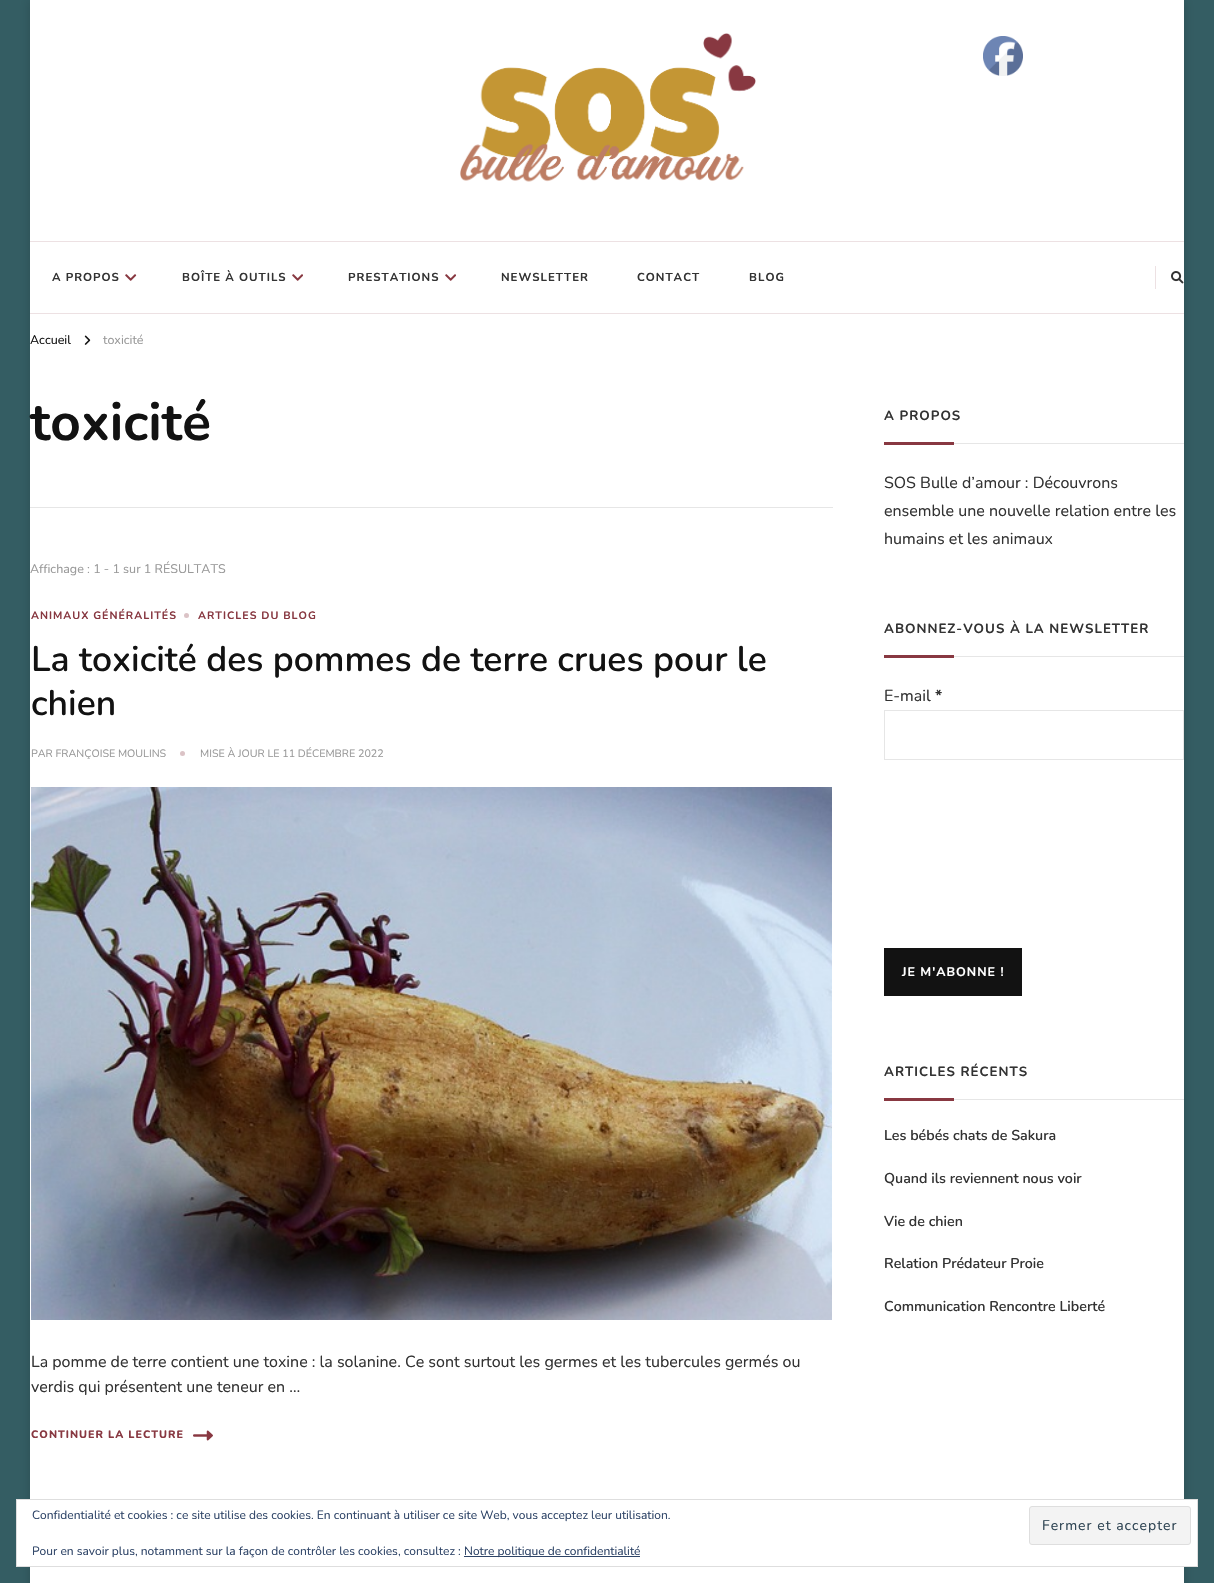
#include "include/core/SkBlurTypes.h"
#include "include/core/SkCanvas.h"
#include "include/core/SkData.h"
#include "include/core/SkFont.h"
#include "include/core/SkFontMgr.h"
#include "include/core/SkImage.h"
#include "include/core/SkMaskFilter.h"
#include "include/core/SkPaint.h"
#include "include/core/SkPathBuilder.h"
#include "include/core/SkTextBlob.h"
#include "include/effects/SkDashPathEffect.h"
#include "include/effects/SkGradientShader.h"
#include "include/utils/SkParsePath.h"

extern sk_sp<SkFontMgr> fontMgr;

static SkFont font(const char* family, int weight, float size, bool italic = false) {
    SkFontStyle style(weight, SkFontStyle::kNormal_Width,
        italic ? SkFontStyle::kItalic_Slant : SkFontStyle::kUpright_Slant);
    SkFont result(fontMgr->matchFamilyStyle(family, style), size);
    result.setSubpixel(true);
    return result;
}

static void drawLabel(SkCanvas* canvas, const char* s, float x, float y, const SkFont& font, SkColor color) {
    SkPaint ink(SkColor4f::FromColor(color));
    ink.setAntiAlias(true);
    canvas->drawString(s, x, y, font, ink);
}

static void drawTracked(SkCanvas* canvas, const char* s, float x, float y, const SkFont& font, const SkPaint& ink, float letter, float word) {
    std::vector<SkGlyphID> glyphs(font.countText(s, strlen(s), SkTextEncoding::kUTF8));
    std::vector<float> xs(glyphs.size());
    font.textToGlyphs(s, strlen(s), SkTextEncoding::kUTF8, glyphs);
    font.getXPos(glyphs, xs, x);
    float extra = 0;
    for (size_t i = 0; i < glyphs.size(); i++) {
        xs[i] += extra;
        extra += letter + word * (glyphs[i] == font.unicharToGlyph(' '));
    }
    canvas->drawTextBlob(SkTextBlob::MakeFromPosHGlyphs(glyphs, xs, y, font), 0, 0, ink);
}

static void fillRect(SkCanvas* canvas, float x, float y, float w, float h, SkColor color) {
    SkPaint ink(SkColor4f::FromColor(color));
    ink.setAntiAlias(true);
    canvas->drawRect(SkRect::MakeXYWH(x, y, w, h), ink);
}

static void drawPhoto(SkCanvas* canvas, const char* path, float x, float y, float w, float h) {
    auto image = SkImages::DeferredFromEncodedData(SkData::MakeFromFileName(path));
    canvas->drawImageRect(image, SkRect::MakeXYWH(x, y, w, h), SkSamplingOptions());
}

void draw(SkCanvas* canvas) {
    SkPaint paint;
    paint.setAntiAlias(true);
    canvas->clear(0xFF345D63);
    paint.setColor(0x29000000);
    paint.setMaskFilter(SkMaskFilter::MakeBlur(kNormal_SkBlurStyle, 5));
    canvas->drawRect(SkRect::MakeXYWH(30, 0, 1154, 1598), paint);
    paint.setMaskFilter(nullptr);
    fillRect(canvas, 30, 0, 1154, 1583, 0xFFFFFFFF);
    drawPhoto(canvas, "assets/img1.png", 983, 36, 40, 40);
    drawPhoto(canvas, "assets/img2.png", 460, 33, 296, 149);
    fillRect(canvas, 30, 241, 1154, 1, 0xFFEDE1E3);
    fillRect(canvas, 30, 313, 1154, 1, 0xFFEDE1E3);
    SkFont font1 = font("Nunito", 700, 11.5f);
    paint.setColor(0xFF333333);
    drawTracked(canvas, "A PROPOS", 52, 281, font1, paint, 1, 0);
    drawPhoto(canvas, "assets/img3.png", 125, 274, 12, 7);
    drawTracked(canvas, "BOÎTE À OUTILS", 182, 281, font1, paint, 1, 0);
    drawPhoto(canvas, "assets/img4.png", 292, 274, 11, 7);
    drawTracked(canvas, "PRESTATIONS", 348, 281, font1, paint, 1, 0);
    drawPhoto(canvas, "assets/img4.png", 445, 274, 11, 7);
    drawTracked(canvas, "NEWSLETTER", 501, 281, font1, paint, 1, 0);
    drawTracked(canvas, "CONTACT", 637, 281, font1, paint, 1, 0);
    drawTracked(canvas, "BLOG", 749, 281, font1, paint, 1, 0);
    fillRect(canvas, 1155, 266, 1, 23, 0xFFEDE1E3);
    drawPhoto(canvas, "assets/img5.png", 1171, 271, 13, 13);
    SkFont font2 = font("Nunito", 400, 12.5f);
    drawLabel(canvas, "Accueil", 30, 344, font2, 0xFF121212);
    drawPhoto(canvas, "assets/img6.png", 84, 335, 7, 10);
    drawLabel(canvas, "toxicité", 103, 344, font2, 0xFF999999);
    fillRect(canvas, 30, 507, 803, 1, 0xFFE6E6E6);
    SkFont font3 = font("Nunito", 700, 53);
    drawLabel(canvas, "toxicité", 30, 440, font3, 0xFF121212);
    drawLabel(canvas, "Affichage : 1 - 1 sur 1 RÉSULTATS", 30, 573, font2, 0xFF999999);
    SkFont font4 = font("Nunito", 700, 10.7f);
    paint.setColor(0xFF883841);
    drawTracked(canvas, "ANIMAUX GÉNÉRALITÉS", 31, 619, font4, paint, 1, 0);
    paint.setColor(0xFFDBC3C6);
    canvas->drawCircle(186.5f, 615.5f, 2.5f, paint);
    paint.setColor(0xFF883841);
    drawTracked(canvas, "ARTICLES DU BLOG", 198, 619, font4, paint, 1, 0);
    SkFont font5 = font("Nunito", 600, 35.5f);
    drawLabel(canvas, "La toxicité des pommes de terre crues pour le", 31, 671, font5, 0xFF121212);
    drawLabel(canvas, "chien", 31, 715, font5, 0xFF121212);
    SkFont font6 = font("Nunito", 400, 10.7f);
    drawLabel(canvas, "PAR FRANÇOISE MOULINS", 31, 757, font6, 0xFF999999);
    paint.setColor(0xFFDBC3C6);
    canvas->drawCircle(182.5f, 753.5f, 2.5f, paint);
    drawLabel(canvas, "MISE À JOUR LE 11 DÉCEMBRE 2022", 200, 757, font6, 0xFF999999);
    drawPhoto(canvas, "assets/img7.png", 31, 787, 801, 533);
    SkFont font7 = font("Nunito", 400, 16);
    drawLabel(canvas, "La pomme de terre contient une toxine : la solanine. Ce sont surtout les germes et les tubercules germés ou", 31, 1367, font7, 0xFF333333);
    drawLabel(canvas, "verdis qui présentent une teneur en …", 31, 1392, font7, 0xFF333333);
    SkFont font8 = font("Nunito", 800, 10.75f);
    paint.setColor(0xFF883841);
    drawTracked(canvas, "CONTINUER LA LECTURE", 31, 1438, font8, paint, 1, 0);
    drawPhoto(canvas, "assets/img8.png", 193, 1430, 20, 11);
    fillRect(canvas, 954, 443, 230, 1, 0xFFE6E6E6);
    SkFont font9 = font("Nunito", 700, 13.3f);
    paint.setColor(0xFF333333);
    drawTracked(canvas, "A PROPOS", 884, 420, font9, paint, 1, 0);
    fillRect(canvas, 884, 442, 70, 3, 0xFF883841);
    drawLabel(canvas, "SOS Bulle d’amour : Découvrons", 884, 488, font7, 0xFF333333);
    drawLabel(canvas, "ensemble une nouvelle relation entre les", 884, 516, font7, 0xFF333333);
    drawLabel(canvas, "humains et les animaux", 884, 544, font7, 0xFF333333);
    fillRect(canvas, 954, 656, 230, 1, 0xFFE6E6E6);
    drawTracked(canvas, "ABONNEZ-VOUS À LA NEWSLETTER", 884, 633, font9, paint, 1, 0);
    fillRect(canvas, 884, 655, 70, 3, 0xFF883841);
    drawLabel(canvas, "E-mail", 884, 701, font7, 0xFF333333);
    SkFont font10 = font("Nunito", 700, 16);
    drawLabel(canvas, "*", 935, 701, font10, 0xFF333333);
    paint.setStroke(true);
    paint.setStrokeWidth(1);
    paint.setColor(0xFFE6E6E6);
    canvas->drawRect(SkRect::MakeXYWH(884.5f, 710.5f, 299, 49), paint);
    fillRect(canvas, 884, 948, 138, 48, 0xFF121212);
    SkFont font11 = font("Nunito", 700, 12.5f);
    paint.setStroke(false);
    paint.setColor(0xFFFFFFFF);
    drawTracked(canvas, "JE M'ABONNE !", 902, 976, font11, paint, 1, 0);
    fillRect(canvas, 954, 1099, 230, 1, 0xFFE6E6E6);
    paint.setColor(0xFF333333);
    drawTracked(canvas, "ARTICLES RÉCENTS", 884, 1076, font9, paint, 1, 0);
    fillRect(canvas, 884, 1098, 70, 3, 0xFF883841);
    SkFont font12 = font("Nunito", 600, 14.25f);
    drawLabel(canvas, "Les bébés chats de Sakura", 884, 1140, font12, 0xFF333333);
    drawLabel(canvas, "Quand ils reviennent nous voir", 884, 1183, font12, 0xFF333333);
    drawLabel(canvas, "Vie de chien", 884, 1226, font12, 0xFF333333);
    drawLabel(canvas, "Relation Prédateur Proie", 884, 1268, font12, 0xFF333333);
    drawLabel(canvas, "Communication Rencontre Liberté", 884, 1311, font12, 0xFF333333);
    paint.setColor(0xFFFFFFFF);
    canvas->drawRect(SkRect::MakeXYWH(16.5f, 1499.5f, 1181, 67), paint);
    paint.setStroke(true);
    paint.setColor(0xFFDEDEDE);
    canvas->drawRect(SkRect::MakeXYWH(16.5f, 1499.5f, 1181, 67), paint);
    SkFont font13 = font("Nunito", 400, 12);
    drawLabel(canvas, "Confidentialité et cookies : ce site utilise des cookies. En continuant à utiliser ce site Web, vous acceptez leur utilisation.", 32, 1519, font13, 0xFF2E4467);
    paint.setStroke(false);
    paint.setColor(0xFFF3F3F3);
    canvas->drawRoundRect(SkRect::MakeXYWH(1029.5f, 1506.5f, 161, 38), 2.5f, 2.5f, paint);
    paint.setStroke(true);
    paint.setColor(0xFFDEDEDE);
    canvas->drawRoundRect(SkRect::MakeXYWH(1029.5f, 1506.5f, 161, 38), 2.5f, 2.5f, paint);
    SkFont font14 = font("Nunito", 400, 14);
    paint.setStroke(false);
    paint.setColor(0xFF2E4453);
    drawTracked(canvas, "Fermer et accepter", 1042, 1530, font14, paint, 1, 0);
    drawLabel(canvas, "Pour en savoir plus, notamment sur la façon de contrôler les cookies, consultez :", 32, 1555, font13, 0xFF2E4467);
    fillRect(canvas, 464, 1556, 176, 1, 0xFF2E4467);
    drawLabel(canvas, "Notre politique de confidentialité", 464, 1555, font13, 0xFF2E4467);
}
